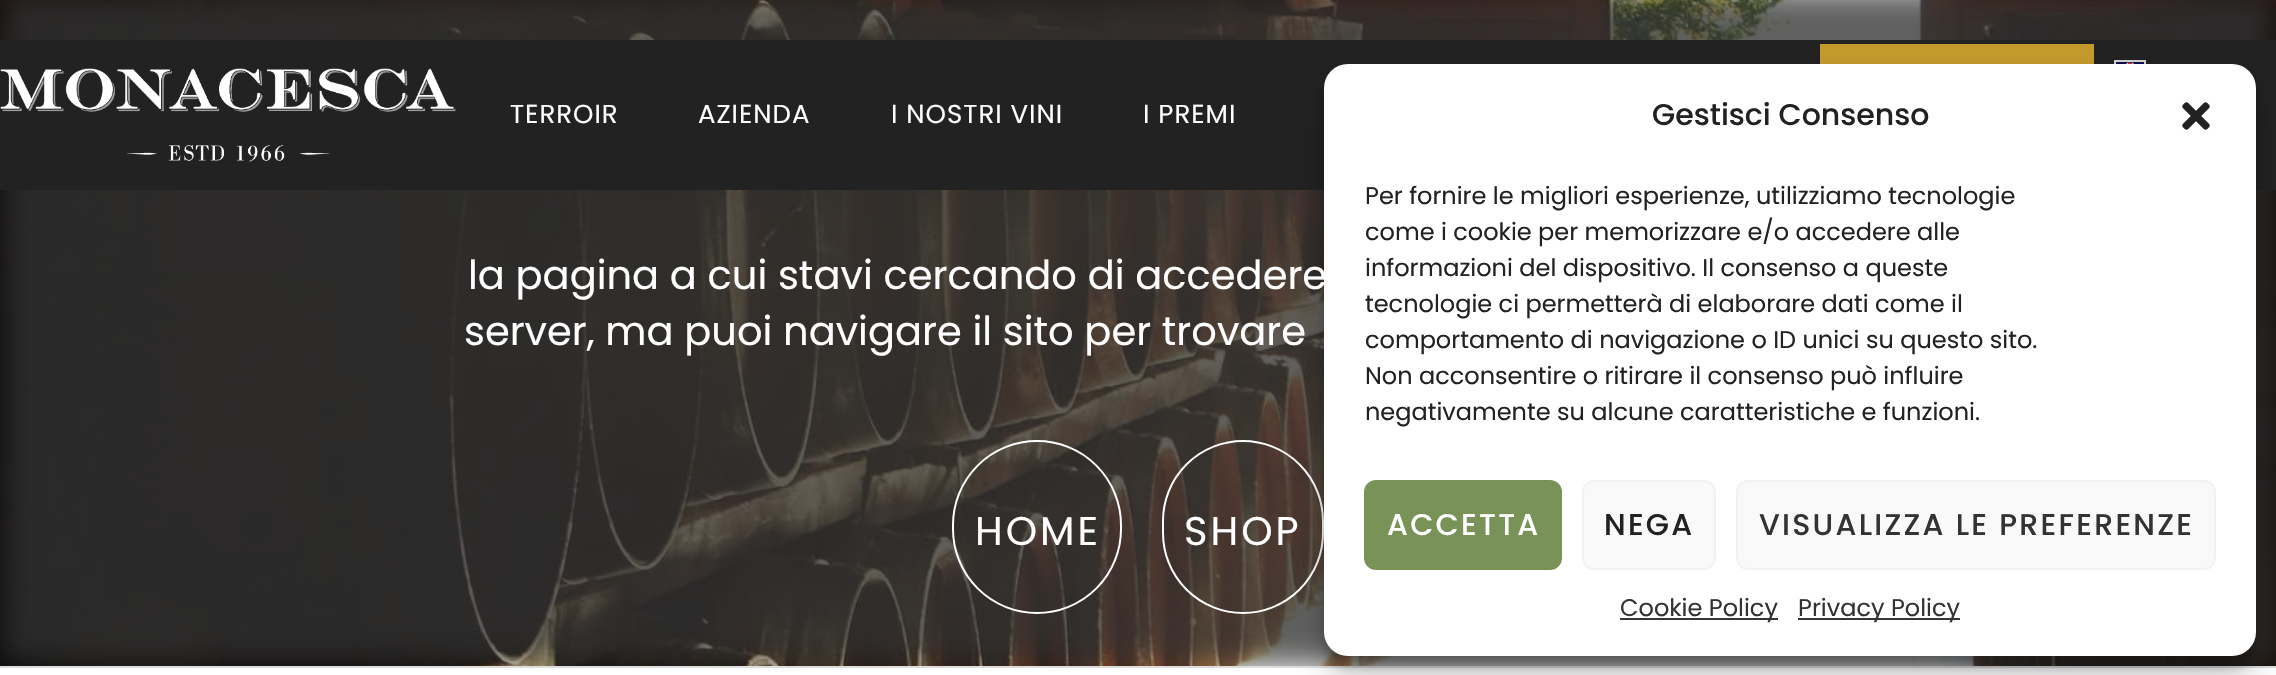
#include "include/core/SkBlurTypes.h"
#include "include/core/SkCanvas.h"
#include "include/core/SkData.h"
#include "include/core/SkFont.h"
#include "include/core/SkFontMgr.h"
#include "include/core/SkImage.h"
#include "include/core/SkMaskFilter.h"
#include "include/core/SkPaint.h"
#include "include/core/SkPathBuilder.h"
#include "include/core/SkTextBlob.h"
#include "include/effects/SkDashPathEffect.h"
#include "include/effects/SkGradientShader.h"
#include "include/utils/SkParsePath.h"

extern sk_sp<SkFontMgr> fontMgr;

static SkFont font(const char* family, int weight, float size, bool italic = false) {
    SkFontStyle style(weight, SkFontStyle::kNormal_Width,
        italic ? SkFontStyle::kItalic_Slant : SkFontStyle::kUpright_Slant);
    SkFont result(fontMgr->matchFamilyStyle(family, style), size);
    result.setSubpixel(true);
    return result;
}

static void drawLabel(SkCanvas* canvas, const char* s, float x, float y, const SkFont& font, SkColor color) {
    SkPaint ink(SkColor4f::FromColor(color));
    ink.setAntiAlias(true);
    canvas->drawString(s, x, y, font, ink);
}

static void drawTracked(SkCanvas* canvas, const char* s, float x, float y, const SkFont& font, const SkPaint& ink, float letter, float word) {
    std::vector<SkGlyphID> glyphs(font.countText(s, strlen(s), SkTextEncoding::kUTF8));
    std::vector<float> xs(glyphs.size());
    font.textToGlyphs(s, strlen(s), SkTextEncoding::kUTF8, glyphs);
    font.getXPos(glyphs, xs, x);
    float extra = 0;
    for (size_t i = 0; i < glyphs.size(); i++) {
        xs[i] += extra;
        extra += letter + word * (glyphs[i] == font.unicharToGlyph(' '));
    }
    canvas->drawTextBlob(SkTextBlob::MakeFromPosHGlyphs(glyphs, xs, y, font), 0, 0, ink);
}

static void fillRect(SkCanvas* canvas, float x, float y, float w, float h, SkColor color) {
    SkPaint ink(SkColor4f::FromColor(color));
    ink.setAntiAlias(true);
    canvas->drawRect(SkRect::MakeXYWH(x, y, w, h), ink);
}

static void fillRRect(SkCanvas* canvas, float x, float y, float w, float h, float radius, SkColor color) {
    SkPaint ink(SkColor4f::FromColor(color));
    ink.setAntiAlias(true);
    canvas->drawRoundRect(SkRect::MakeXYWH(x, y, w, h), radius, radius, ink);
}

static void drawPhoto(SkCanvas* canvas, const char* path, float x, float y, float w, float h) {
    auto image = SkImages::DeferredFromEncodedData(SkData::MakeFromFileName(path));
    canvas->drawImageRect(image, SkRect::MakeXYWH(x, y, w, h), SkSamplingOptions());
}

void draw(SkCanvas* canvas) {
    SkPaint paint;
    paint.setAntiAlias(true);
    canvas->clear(0xFFFFFFFF);
    drawPhoto(canvas, "assets/img4.png", 0, 0, 2276, 666);
    paint.setColor(0xC7333333);
    paint.setMaskFilter(SkMaskFilter::MakeBlur(kNormal_SkBlurStyle, 15));
    canvas->drawRect(SkRect::MakeXYWH(0, -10, 2276, 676), paint);
    paint.setMaskFilter(nullptr);
    fillRect(canvas, 0, 40, 2276, 150, 0xFF222222);
    fillRect(canvas, 1820, 44, 274, 20, 0xFFC69B2D);
    drawPhoto(canvas, "assets/img1.png", 0, 68, 456, 94);
    SkFont font1 = font("Poppins", 400, 26);
    paint.setColor(0xFFFFFFFF);
    drawTracked(canvas, "TERROIR", 510, 123, font1, paint, 1, 0);
    drawTracked(canvas, "AZIENDA", 698, 123, font1, paint, 1, 0);
    drawTracked(canvas, "I NOSTRI VINI", 891, 123, font1, paint, 1, 0);
    drawTracked(canvas, "I PREMI", 1143, 123, font1, paint, 1, 0);
    paint.setStroke(true);
    paint.setStrokeWidth(2);
    paint.setColor(0xFFD3D3D3);
    canvas->drawRect(SkRect::MakeXYWH(2115, 61, 30, 22), paint);
    drawPhoto(canvas, "assets/img2.png", 2116, 62, 28, 2);
    paint.setColor(0xFFFFFFFF);
    canvas->drawRoundRect(SkRect::MakeXYWH(1163, 441, 160, 172), 80, 80, paint);
    fillRect(canvas, 0, 668, 2276, 7, 0xFFFFFFFF);
    fillRect(canvas, 0, 666, 2276, 2, 0xFFDDDDDD);
    paint.setStroke(false);
    paint.setColor(0x3B000000);
    paint.setMaskFilter(SkMaskFilter::MakeBlur(kNormal_SkBlurStyle, 6));
    canvas->drawRoundRect(SkRect::MakeXYWH(1324, 76, 932, 592), 24, 24, paint);
    paint.setMaskFilter(nullptr);
    paint.setColor(0x30000000);
    paint.setMaskFilter(SkMaskFilter::MakeBlur(kNormal_SkBlurStyle, 20));
    canvas->drawRoundRect(SkRect::MakeXYWH(1324, 84, 932, 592), 24, 24, paint);
    paint.setMaskFilter(nullptr);
    fillRRect(canvas, 1324, 64, 932, 592, 24, 0xFFFFFFFF);
    SkFont font2 = font("Poppins", 500, 30);
    drawLabel(canvas, "Gestisci Consenso", 1652, 125, font2, 0xFF222222);
    drawPhoto(canvas, "assets/img3.png", 2182, 102, 28, 28);
    SkFont font3 = font("Poppins", 400, 24);
    drawLabel(canvas, "Per fornire le migliori esperienze, utilizziamo tecnologie", 1365, 204, font3, 0xFF222222);
    drawLabel(canvas, "come i cookie per memorizzare e/o accedere alle", 1365, 240, font3, 0xFF222222);
    drawLabel(canvas, "informazioni del dispositivo. Il consenso a queste", 1365, 276, font3, 0xFF222222);
    drawLabel(canvas, "tecnologie ci permetterà di elaborare dati come il", 1365, 312, font3, 0xFF222222);
    drawLabel(canvas, "comportamento di navigazione o ID unici su questo sito.", 1365, 348, font3, 0xFF222222);
    drawLabel(canvas, "Non acconsentire o ritirare il consenso può influire", 1365, 384, font3, 0xFF222222);
    drawLabel(canvas, "negativamente su alcune caratteristiche e funzioni.", 1365, 420, font3, 0xFF222222);
    paint.setColor(0xFF789257);
    canvas->drawRoundRect(SkRect::MakeXYWH(1365, 481, 196, 88), 11, 11, paint);
    paint.setStroke(true);
    canvas->drawRoundRect(SkRect::MakeXYWH(1365, 481, 196, 88), 11, 11, paint);
    paint.setStroke(false);
    paint.setColor(0xFFFFFFFF);
    drawTracked(canvas, "ACCETTA", 1387, 535, font2, paint, 2.25f, 0);
    paint.setColor(0xFFF9F9F9);
    canvas->drawRoundRect(SkRect::MakeXYWH(1583, 481, 132, 88), 11, 11, paint);
    paint.setStroke(true);
    paint.setColor(0xFFF2F2F2);
    canvas->drawRoundRect(SkRect::MakeXYWH(1583, 481, 132, 88), 11, 11, paint);
    paint.setStroke(false);
    paint.setColor(0xFF222222);
    drawTracked(canvas, "NEGA", 1604, 535, font2, paint, 2.25f, 0);
    paint.setColor(0xFFF9F9F9);
    canvas->drawRoundRect(SkRect::MakeXYWH(1737, 481, 478, 88), 11, 11, paint);
    paint.setStroke(true);
    paint.setColor(0xFFF2F2F2);
    canvas->drawRoundRect(SkRect::MakeXYWH(1737, 481, 478, 88), 11, 11, paint);
    paint.setStroke(false);
    paint.setColor(0xFF333333);
    drawTracked(canvas, "VISUALIZZA LE PREFERENZE", 1759, 535, font2, paint, 2.25f, 0);
    fillRect(canvas, 1620, 618, 158, 2, 0xFF353531);
    drawLabel(canvas, "Cookie Policy", 1620, 616, font3, 0xFF333333);
    fillRect(canvas, 1798, 618, 162, 2, 0xFF353531);
    drawLabel(canvas, "Privacy Policy", 1798, 616, font3, 0xFF333333);
    SkFont font4 = font("Poppins", 400, 40);
    drawLabel(canvas, "la pagina a cui stavi cercando di accedere", 468, 289, font4, 0xFFFFFFFF);
    drawLabel(canvas, "server, ma puoi navigare il sito per trovare", 464, 345, font4, 0xFFFFFFFF);
    paint.setStroke(true);
    paint.setColor(0xFFFFFFFF);
    canvas->drawRoundRect(SkRect::MakeXYWH(953, 441, 168, 172), 84, 84, paint);
    paint.setStroke(false);
    drawTracked(canvas, "HOME", 975, 545, font4, paint, 3, 0);
    drawTracked(canvas, "SHOP", 1184, 545, font4, paint, 3, 0);
}
